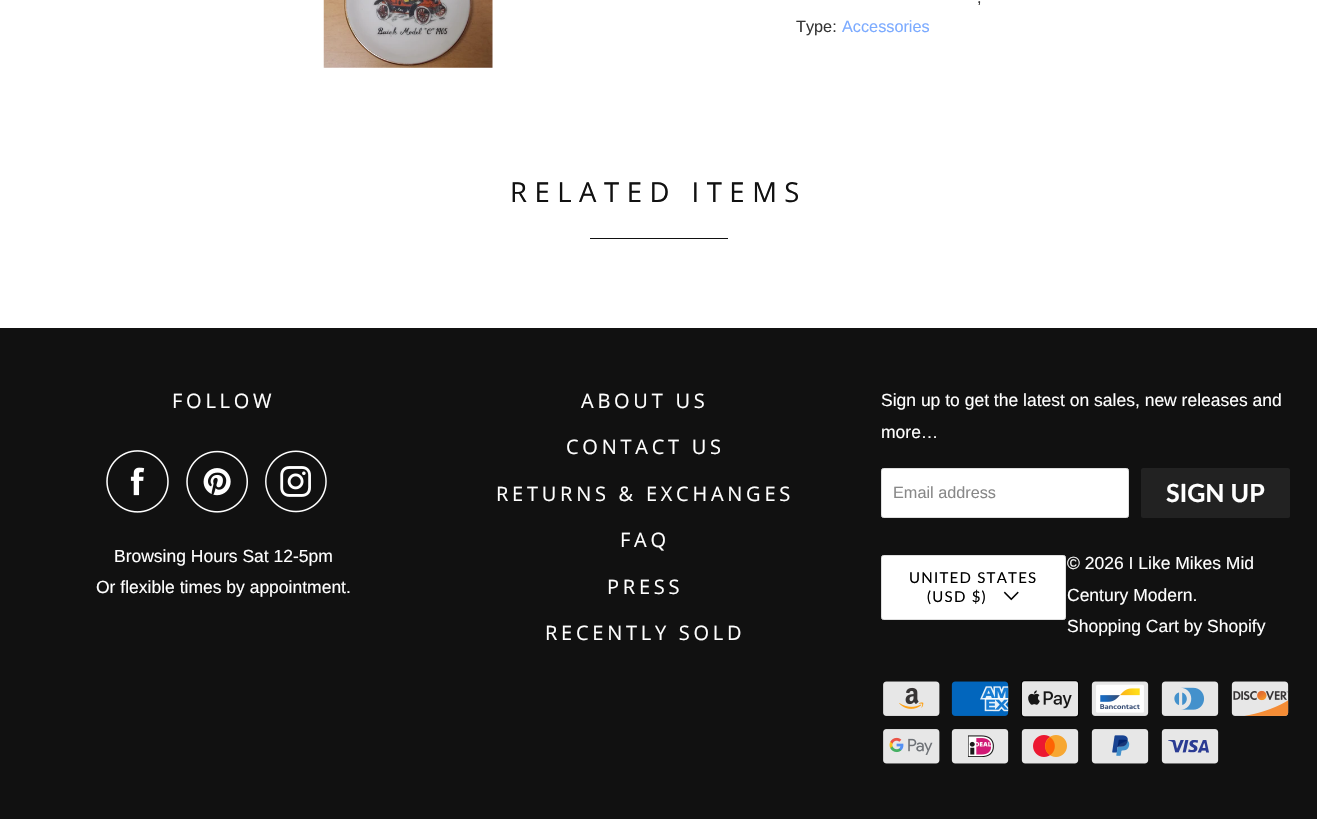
#include "include/core/SkBlurTypes.h"
#include "include/core/SkCanvas.h"
#include "include/core/SkData.h"
#include "include/core/SkFont.h"
#include "include/core/SkFontMgr.h"
#include "include/core/SkImage.h"
#include "include/core/SkMaskFilter.h"
#include "include/core/SkPaint.h"
#include "include/core/SkPathBuilder.h"
#include "include/core/SkTextBlob.h"
#include "include/effects/SkDashPathEffect.h"
#include "include/effects/SkGradientShader.h"
#include "include/utils/SkParsePath.h"

extern sk_sp<SkFontMgr> fontMgr;

static SkFont font(const char* family, int weight, float size, bool italic = false) {
    SkFontStyle style(weight, SkFontStyle::kNormal_Width,
        italic ? SkFontStyle::kItalic_Slant : SkFontStyle::kUpright_Slant);
    SkFont result(fontMgr->matchFamilyStyle(family, style), size);
    result.setSubpixel(true);
    return result;
}

static void drawLabel(SkCanvas* canvas, const char* s, float x, float y, const SkFont& font, SkColor color) {
    SkPaint ink(SkColor4f::FromColor(color));
    ink.setAntiAlias(true);
    canvas->drawString(s, x, y, font, ink);
}

static void drawTracked(SkCanvas* canvas, const char* s, float x, float y, const SkFont& font, const SkPaint& ink, float letter, float word) {
    std::vector<SkGlyphID> glyphs(font.countText(s, strlen(s), SkTextEncoding::kUTF8));
    std::vector<float> xs(glyphs.size());
    font.textToGlyphs(s, strlen(s), SkTextEncoding::kUTF8, glyphs);
    font.getXPos(glyphs, xs, x);
    float extra = 0;
    for (size_t i = 0; i < glyphs.size(); i++) {
        xs[i] += extra;
        extra += letter + word * (glyphs[i] == font.unicharToGlyph(' '));
    }
    canvas->drawTextBlob(SkTextBlob::MakeFromPosHGlyphs(glyphs, xs, y, font), 0, 0, ink);
}

static void fillRect(SkCanvas* canvas, float x, float y, float w, float h, SkColor color) {
    SkPaint ink(SkColor4f::FromColor(color));
    ink.setAntiAlias(true);
    canvas->drawRect(SkRect::MakeXYWH(x, y, w, h), ink);
}

static void fillRRect(SkCanvas* canvas, float x, float y, float w, float h, float radius, SkColor color) {
    SkPaint ink(SkColor4f::FromColor(color));
    ink.setAntiAlias(true);
    canvas->drawRoundRect(SkRect::MakeXYWH(x, y, w, h), radius, radius, ink);
}

static void drawPhoto(SkCanvas* canvas, const char* path, float x, float y, float w, float h) {
    auto image = SkImages::DeferredFromEncodedData(SkData::MakeFromFileName(path));
    canvas->drawImageRect(image, SkRect::MakeXYWH(x, y, w, h), SkSamplingOptions());
}

void draw(SkCanvas* canvas) {
    SkPaint paint;
    paint.setAntiAlias(true);
    canvas->clear(0xFFFFFFFF);
    drawPhoto(canvas, "assets/img1.png", 323, 0, 170, 68);
    SkFont font1 = font("Liberation Sans", 400, 16.25f);
    drawLabel(canvas, ",", 977, 3, font1, 0xFF363636);
    drawLabel(canvas, "Type:", 796, 32, font1, 0xFF363636);
    drawLabel(canvas, "Accessories", 842, 32, font1, 0xFF7CABFF);
    SkFont font2 = font("Open Sans", 400, 27.5f);
    paint.setColor(0xFF111111);
    drawTracked(canvas, "RELATED ITEMS", 510, 202, font2, paint, 7.5f, 0);
    fillRect(canvas, 590, 238, 138, 1, 0xFF111111);
    fillRect(canvas, 0, 328, 1317, 491, 0xFF111111);
    SkFont font3 = font("Open Sans", 400, 20);
    paint.setColor(0xFFFFFFFF);
    drawTracked(canvas, "FOLLOW", 172, 408, font3, paint, 3.75f, 0);
    drawPhoto(canvas, "assets/img2.png", 106, 450, 63, 63);
    drawPhoto(canvas, "assets/img3.png", 186, 450, 62, 63);
    drawPhoto(canvas, "assets/img4.png", 265, 450, 62, 63);
    SkFont font4 = font("Liberation Sans", 400, 17.5f);
    drawLabel(canvas, "Browsing Hours Sat 12-5pm", 114, 562, font4, 0xFFFFFFFF);
    drawLabel(canvas, "Or flexible times by appointment.", 96, 593, font4, 0xFFFFFFFF);
    drawTracked(canvas, "ABOUT US", 581, 408, font3, paint, 3.75f, 0);
    drawTracked(canvas, "CONTACT US", 566, 454, font3, paint, 3.75f, 0);
    drawTracked(canvas, "RETURNS & EXCHANGES", 496, 501, font3, paint, 3.75f, 0);
    drawTracked(canvas, "FAQ", 620, 547, font3, paint, 3.75f, 0);
    drawTracked(canvas, "PRESS", 607, 594, font3, paint, 3.75f, 0);
    drawTracked(canvas, "RECENTLY SOLD", 545, 640, font3, paint, 3.75f, 0);
    drawLabel(canvas, "Sign up to get the latest on sales, new releases and", 881, 406, font4, 0xFFFFFFFF);
    drawLabel(canvas, "more…", 881, 438, font4, 0xFFFFFFFF);
    canvas->drawRoundRect(SkRect::MakeXYWH(881.5f, 468.5f, 247, 49), 2, 2, paint);
    paint.setStroke(true);
    paint.setStrokeWidth(1);
    paint.setColor(0xFFDFDFDF);
    canvas->drawRoundRect(SkRect::MakeXYWH(881.5f, 468.5f, 247, 49), 2, 2, paint);
    drawLabel(canvas, "Email address", 893, 498, font1, 0xFF888888);
    fillRRect(canvas, 1141, 468, 149, 50, 2.5f, 0xFF222222);
    SkFont font5 = font("Lato", 700, 25);
    drawLabel(canvas, "SIGN UP", 1166, 502, font5, 0xFFFFFFFF);
    paint.setStroke(false);
    paint.setColor(0xFFFFFFFF);
    canvas->drawRoundRect(SkRect::MakeXYWH(881.5f, 555.5f, 184, 64), 2, 2, paint);
    paint.setStroke(true);
    paint.setColor(0xFFDFDFDF);
    canvas->drawRoundRect(SkRect::MakeXYWH(881.5f, 555.5f, 184, 64), 2, 2, paint);
    SkFont font6 = font("Lato", 400, 15);
    paint.setStroke(false);
    paint.setColor(0xFF000000);
    drawTracked(canvas, "UNITED STATES", 909, 583, font6, paint, 1.25f, 0);
    drawTracked(canvas, "(USD $)", 927, 602, font6, paint, 1.25f, 0);
    drawPhoto(canvas, "assets/img5.png", 1003, 591, 16, 10);
    drawLabel(canvas, "© 2026 I Like Mikes Mid", 1067, 569, font4, 0xFFFFFFFF);
    drawLabel(canvas, "Century Modern.", 1067, 601, font4, 0xFFFFFFFF);
    drawLabel(canvas, "Shopping Cart by Shopify", 1067, 632, font4, 0xFFFFFFFF);
    drawPhoto(canvas, "assets/img6.png", 883, 681, 57, 35);
    drawPhoto(canvas, "assets/img7.png", 951, 681, 58, 35);
    drawPhoto(canvas, "assets/img8.png", 1020, 680, 60, 38);
    drawPhoto(canvas, "assets/img9.png", 1091, 681, 58, 35);
    drawPhoto(canvas, "assets/img10.png", 1161, 681, 58, 35);
    drawPhoto(canvas, "assets/img11.png", 1231, 681, 58, 35);
    drawPhoto(canvas, "assets/img12.png", 883, 729, 57, 35);
    drawPhoto(canvas, "assets/img13.png", 951, 729, 58, 35);
    drawPhoto(canvas, "assets/img14.png", 1021, 729, 58, 35);
    drawPhoto(canvas, "assets/img15.png", 1091, 729, 58, 35);
    drawPhoto(canvas, "assets/img16.png", 1161, 729, 58, 35);
}
